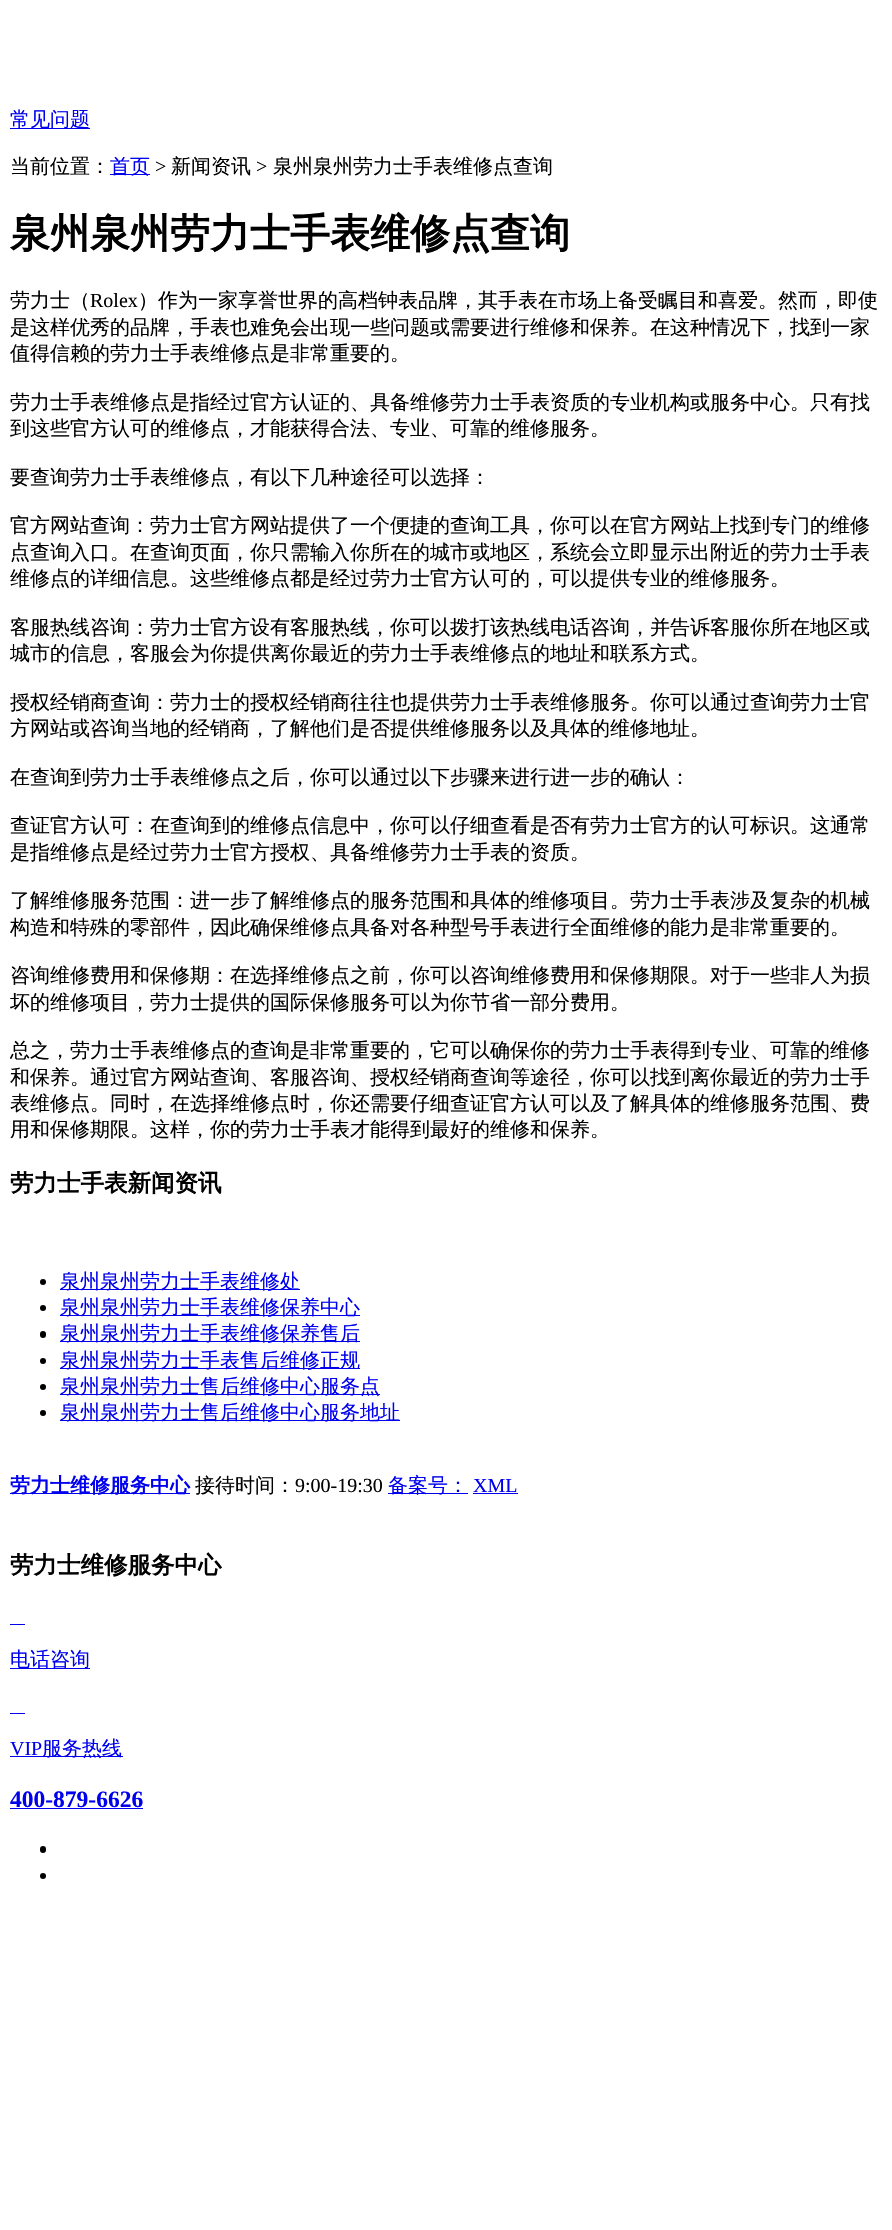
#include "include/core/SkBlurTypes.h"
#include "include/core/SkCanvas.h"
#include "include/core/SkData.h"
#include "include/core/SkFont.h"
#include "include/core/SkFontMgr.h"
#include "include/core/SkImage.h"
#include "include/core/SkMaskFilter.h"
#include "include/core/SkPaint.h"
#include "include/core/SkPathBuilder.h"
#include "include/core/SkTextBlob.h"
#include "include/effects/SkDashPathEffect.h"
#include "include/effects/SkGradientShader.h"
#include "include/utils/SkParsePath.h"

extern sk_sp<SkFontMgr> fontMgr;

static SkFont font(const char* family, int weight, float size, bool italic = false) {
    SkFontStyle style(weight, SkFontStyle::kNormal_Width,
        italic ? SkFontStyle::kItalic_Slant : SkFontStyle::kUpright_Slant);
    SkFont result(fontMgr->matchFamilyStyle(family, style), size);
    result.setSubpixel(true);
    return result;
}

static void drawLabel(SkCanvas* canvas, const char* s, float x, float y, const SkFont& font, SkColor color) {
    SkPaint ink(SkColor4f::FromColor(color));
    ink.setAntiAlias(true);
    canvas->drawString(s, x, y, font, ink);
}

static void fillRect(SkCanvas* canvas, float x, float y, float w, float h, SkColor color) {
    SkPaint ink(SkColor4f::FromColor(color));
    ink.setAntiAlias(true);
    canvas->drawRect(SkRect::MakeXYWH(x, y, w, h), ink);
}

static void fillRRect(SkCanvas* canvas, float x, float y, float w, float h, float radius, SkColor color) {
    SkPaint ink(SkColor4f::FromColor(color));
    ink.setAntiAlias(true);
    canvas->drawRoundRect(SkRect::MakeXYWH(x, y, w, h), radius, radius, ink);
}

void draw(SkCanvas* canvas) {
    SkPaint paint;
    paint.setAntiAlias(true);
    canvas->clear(0xFFFFFFFF);
    fillRect(canvas, 10, 128, 80, 1, 0xFF0000EE);
    SkFont font1 = font("WenQuanYi Zen Hei", 500, 20);
    drawLabel(canvas, "常见问题", 10, 126, font1, 0xFF0000EE);
    drawLabel(canvas, "当前位置：", 10, 173, font1, 0xFF000000);
    fillRect(canvas, 110, 174, 40, 1, 0xFF0000EE);
    drawLabel(canvas, "首页", 110, 173, font1, 0xFF0000EE);
    SkFont font2 = font("Liberation Serif", 400, 20);
    drawLabel(canvas, ">", 155, 173, font2, 0xFF000000);
    drawLabel(canvas, "新闻资讯", 171, 173, font1, 0xFF000000);
    drawLabel(canvas, ">", 256, 173, font2, 0xFF000000);
    drawLabel(canvas, "泉州泉州劳力士手表维修点查询", 273, 173, font1, 0xFF000000);
    SkFont font3 = font("WenQuanYi Zen Hei", 700, 40);
    drawLabel(canvas, "泉州泉州劳力士手表维修点查询", 10, 247, font3, 0xFF000000);
    drawLabel(canvas, "劳力士（", 10, 307, font1, 0xFF000000);
    drawLabel(canvas, "Rolex", 90, 307, font2, 0xFF000000);
    drawLabel(canvas, "）作为一家享誉世界的高档钟表品牌，其手表在市场上备受瞩目和喜爱。然而，即使", 138, 307, font1, 0xFF000000);
    drawLabel(canvas, "是这样优秀的品牌，手表也难免会出现一些问题或需要进行维修和保养。在这种情况下，找到一家", 10, 334, font1, 0xFF000000);
    drawLabel(canvas, "值得信赖的劳力士手表维修点是非常重要的。", 10, 360, font1, 0xFF000000);
    drawLabel(canvas, "劳力士手表维修点是指经过官方认证的、具备维修劳力士手表资质的专业机构或服务中心。只有找", 10, 409, font1, 0xFF000000);
    drawLabel(canvas, "到这些官方认可的维修点，才能获得合法、专业、可靠的维修服务。", 10, 435, font1, 0xFF000000);
    drawLabel(canvas, "要查询劳力士手表维修点，有以下几种途径可以选择：", 10, 484, font1, 0xFF000000);
    drawLabel(canvas, "官方网站查询：劳力士官方网站提供了一个便捷的查询工具，你可以在官方网站上找到专门的维修", 10, 532, font1, 0xFF000000);
    drawLabel(canvas, "点查询入口。在查询页面，你只需输入你所在的城市或地区，系统会立即显示出附近的劳力士手表", 10, 559, font1, 0xFF000000);
    drawLabel(canvas, "维修点的详细信息。这些维修点都是经过劳力士官方认可的，可以提供专业的维修服务。", 10, 585, font1, 0xFF000000);
    drawLabel(canvas, "客服热线咨询：劳力士官方设有客服热线，你可以拨打该热线电话咨询，并告诉客服你所在地区或", 10, 634, font1, 0xFF000000);
    drawLabel(canvas, "城市的信息，客服会为你提供离你最近的劳力士手表维修点的地址和联系方式。", 10, 660, font1, 0xFF000000);
    drawLabel(canvas, "授权经销商查询：劳力士的授权经销商往往也提供劳力士手表维修服务。你可以通过查询劳力士官", 10, 709, font1, 0xFF000000);
    drawLabel(canvas, "方网站或咨询当地的经销商，了解他们是否提供维修服务以及具体的维修地址。", 10, 735, font1, 0xFF000000);
    drawLabel(canvas, "在查询到劳力士手表维修点之后，你可以通过以下步骤来进行进一步的确认：", 10, 784, font1, 0xFF000000);
    drawLabel(canvas, "查证官方认可：在查询到的维修点信息中，你可以仔细查看是否有劳力士官方的认可标识。这通常", 10, 832, font1, 0xFF000000);
    drawLabel(canvas, "是指维修点是经过劳力士官方授权、具备维修劳力士手表的资质。", 10, 859, font1, 0xFF000000);
    drawLabel(canvas, "了解维修服务范围：进一步了解维修点的服务范围和具体的维修项目。劳力士手表涉及复杂的机械", 10, 907, font1, 0xFF000000);
    drawLabel(canvas, "构造和特殊的零部件，因此确保维修点具备对各种型号手表进行全面维修的能力是非常重要的。", 10, 934, font1, 0xFF000000);
    drawLabel(canvas, "咨询维修费用和保修期：在选择维修点之前，你可以咨询维修费用和保修期限。对于一些非人为损", 10, 982, font1, 0xFF000000);
    drawLabel(canvas, "坏的维修项目，劳力士提供的国际保修服务可以为你节省一部分费用。", 10, 1009, font1, 0xFF000000);
    drawLabel(canvas, "总之，劳力士手表维修点的查询是非常重要的，它可以确保你的劳力士手表得到专业、可靠的维修", 10, 1057, font1, 0xFF000000);
    drawLabel(canvas, "和保养。通过官方网站查询、客服咨询、授权经销商查询等途径，你可以找到离你最近的劳力士手", 10, 1084, font1, 0xFF000000);
    drawLabel(canvas, "表维修点。同时，在选择维修点时，你还需要仔细查证官方认可以及了解具体的维修服务范围、费", 10, 1110, font1, 0xFF000000);
    drawLabel(canvas, "用和保修期限。这样，你的劳力士手表才能得到最好的维修和保养。", 10, 1136, font1, 0xFF000000);
    SkFont font4 = font("WenQuanYi Zen Hei", 700, 23.5f);
    drawLabel(canvas, "劳力士手表新闻资讯", 10, 1191, font4, 0xFF000000);
    paint.setColor(0xFF000000);
    canvas->drawCircle(43, 1282, 3, paint);
    fillRect(canvas, 60, 1289, 240, 1, 0xFF0000EE);
    drawLabel(canvas, "泉州泉州劳力士手表维修处", 60, 1288, font1, 0xFF0000EE);
    canvas->drawCircle(43, 1308, 3, paint);
    fillRect(canvas, 60, 1315, 300, 1, 0xFF0000EE);
    drawLabel(canvas, "泉州泉州劳力士手表维修保养中心", 60, 1314, font1, 0xFF0000EE);
    fillRRect(canvas, 40, 1331, 6, 7, 3, 0xFF000000);
    fillRect(canvas, 60, 1341, 300, 1, 0xFF0000EE);
    drawLabel(canvas, "泉州泉州劳力士手表维修保养售后", 60, 1340, font1, 0xFF0000EE);
    canvas->drawCircle(43, 1361, 3, paint);
    fillRect(canvas, 60, 1368, 300, 1, 0xFF0000EE);
    drawLabel(canvas, "泉州泉州劳力士手表售后维修正规", 60, 1367, font1, 0xFF0000EE);
    canvas->drawCircle(43, 1387, 3, paint);
    fillRect(canvas, 60, 1394, 320, 1, 0xFF0000EE);
    drawLabel(canvas, "泉州泉州劳力士售后维修中心服务点", 60, 1393, font1, 0xFF0000EE);
    canvas->drawCircle(43, 1413, 3, paint);
    fillRect(canvas, 60, 1420, 340, 1, 0xFF0000EE);
    drawLabel(canvas, "泉州泉州劳力士售后维修中心服务地址", 60, 1419, font1, 0xFF0000EE);
    fillRect(canvas, 10, 1493, 180, 1, 0xFF0000EE);
    SkFont font5 = font("WenQuanYi Zen Hei", 700, 20);
    drawLabel(canvas, "劳力士维修服务中心", 10, 1492, font5, 0xFF0000EE);
    drawLabel(canvas, "接待时间：", 195, 1492, font1, 0xFF000000);
    drawLabel(canvas, "9:00-19:30", 295, 1492, font2, 0xFF000000);
    fillRect(canvas, 388, 1493, 80, 1, 0xFF0000EE);
    drawLabel(canvas, "备案号：", 388, 1492, font1, 0xFF0000EE);
    drawLabel(canvas, "XML", 473, 1492, font2, 0xFF0000EE);
    fillRect(canvas, 473, 1493, 45, 1, 0xFF0000EE);
    drawLabel(canvas, "劳力士维修服务中心", 10, 1573, font4, 0xFF000000);
    fillRect(canvas, 10, 1624, 15, 1, 0xFF0000EE);
    fillRect(canvas, 10, 1668, 80, 1, 0xFF0000EE);
    drawLabel(canvas, "电话咨询", 10, 1666, font1, 0xFF0000EE);
    fillRect(canvas, 10, 1713, 15, 1, 0xFF0000EE);
    drawLabel(canvas, "VIP", 10, 1755, font2, 0xFF0000EE);
    fillRect(canvas, 10, 1756, 113, 1, 0xFF0000EE);
    drawLabel(canvas, "服务热线", 42, 1755, font1, 0xFF0000EE);
    SkFont font6 = font("Liberation Serif", 700, 23.5f);
    drawLabel(canvas, "400-879-6626", 10, 1807, font6, 0xFF0000EE);
    fillRect(canvas, 10, 1808, 133, 1, 0xFF0000EE);
    fillRRect(canvas, 40, 1846, 6, 7, 3, 0xFF000000);
    canvas->drawCircle(43, 1876, 3, paint);
}
